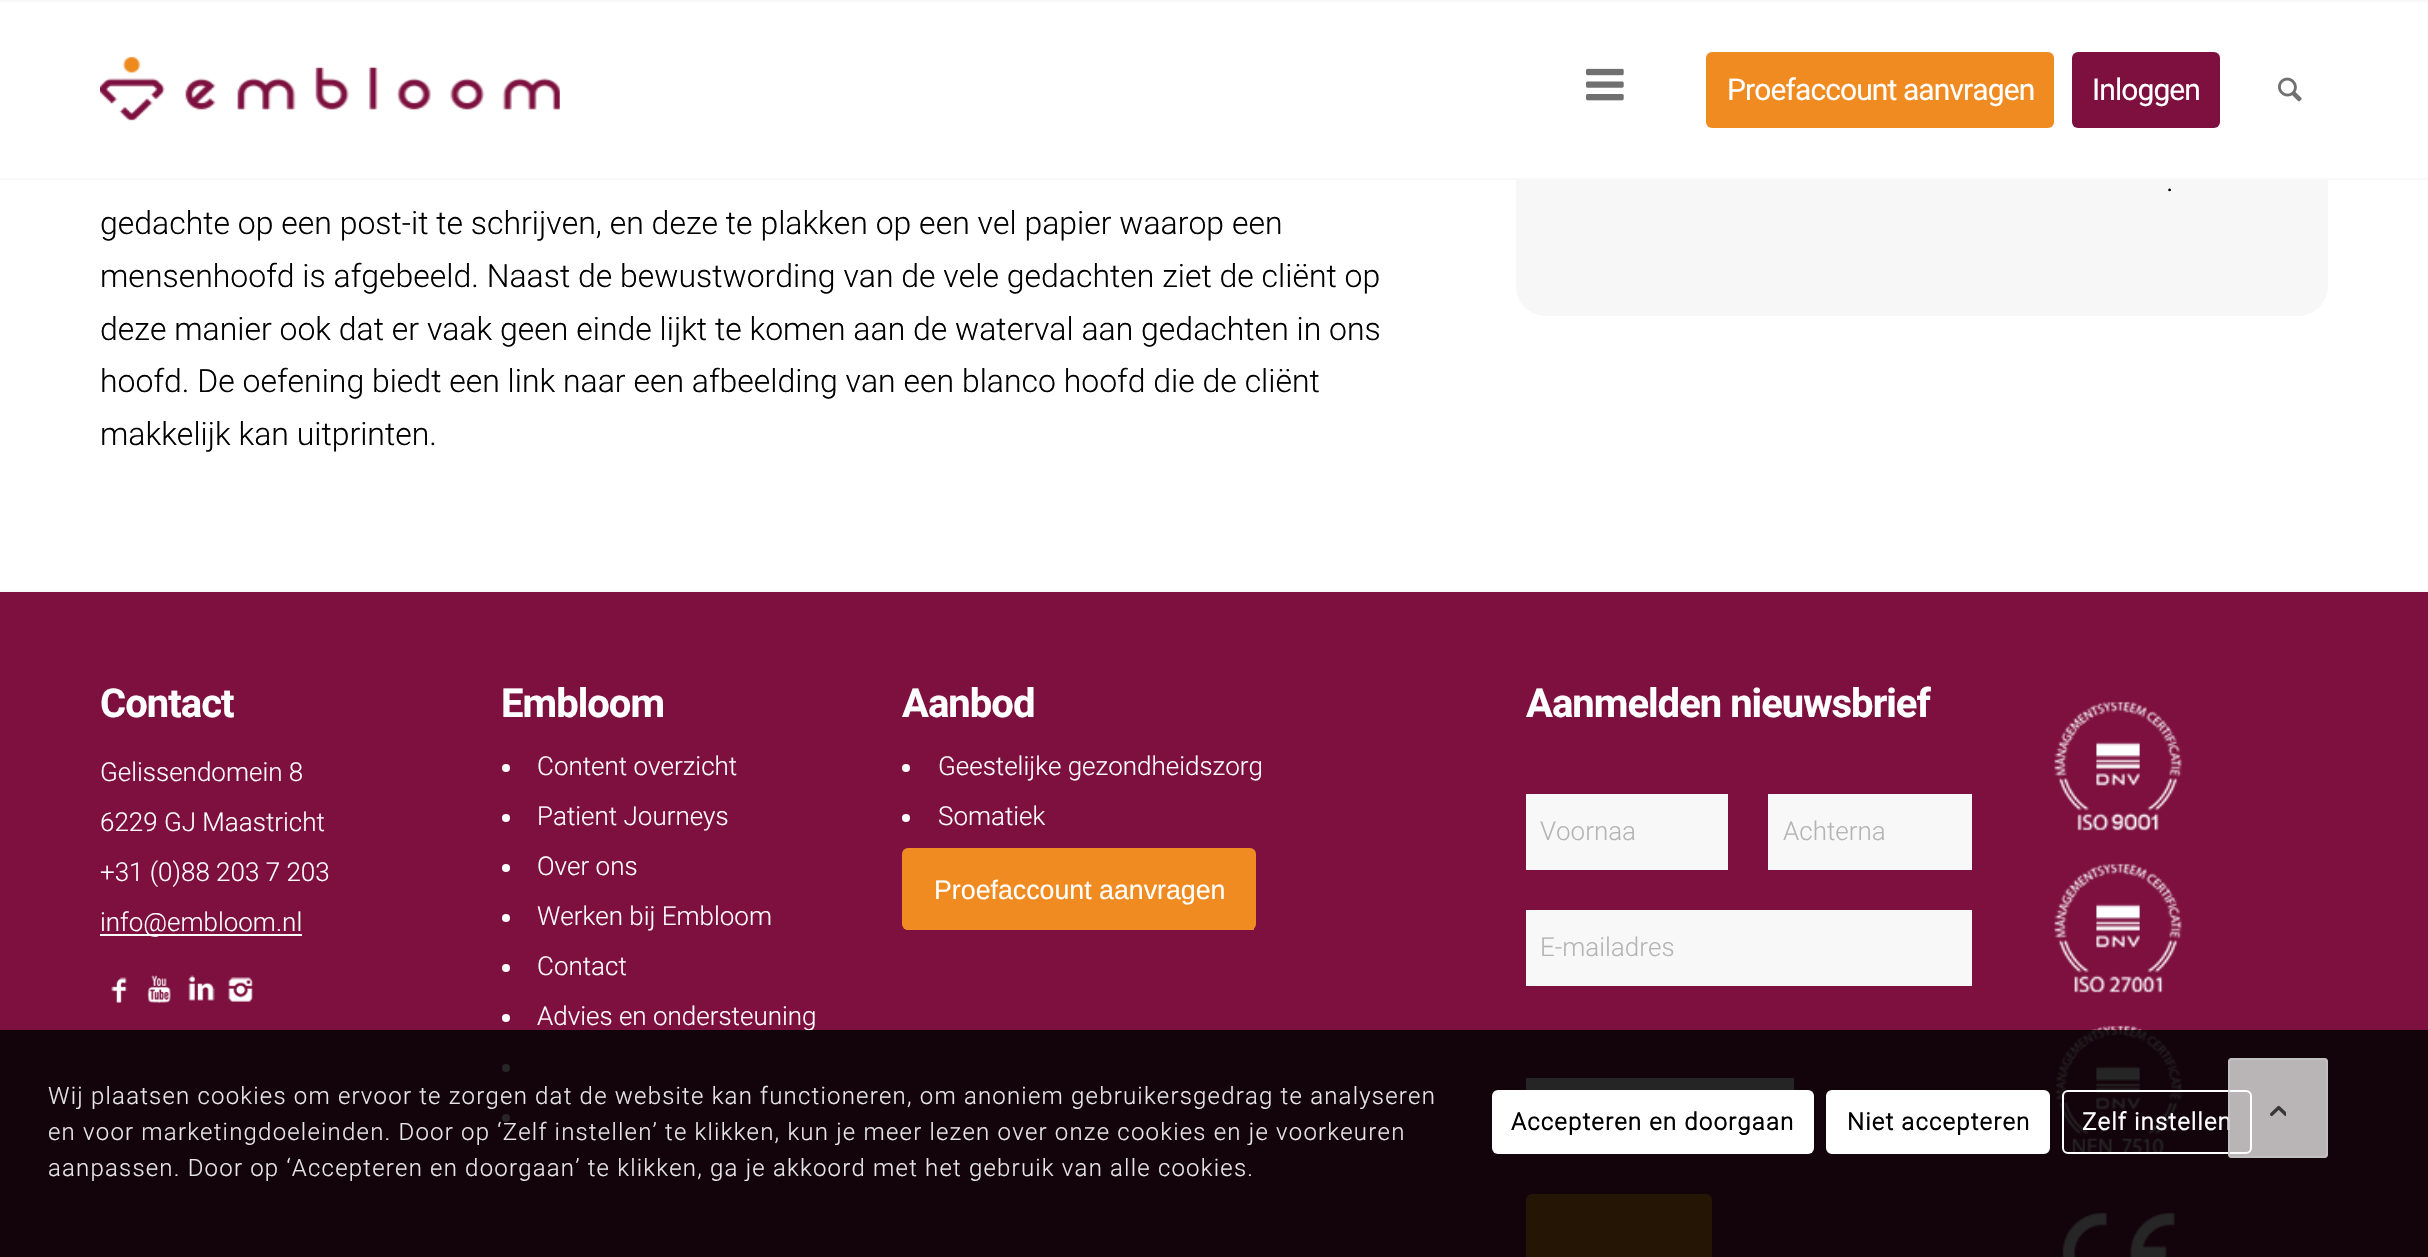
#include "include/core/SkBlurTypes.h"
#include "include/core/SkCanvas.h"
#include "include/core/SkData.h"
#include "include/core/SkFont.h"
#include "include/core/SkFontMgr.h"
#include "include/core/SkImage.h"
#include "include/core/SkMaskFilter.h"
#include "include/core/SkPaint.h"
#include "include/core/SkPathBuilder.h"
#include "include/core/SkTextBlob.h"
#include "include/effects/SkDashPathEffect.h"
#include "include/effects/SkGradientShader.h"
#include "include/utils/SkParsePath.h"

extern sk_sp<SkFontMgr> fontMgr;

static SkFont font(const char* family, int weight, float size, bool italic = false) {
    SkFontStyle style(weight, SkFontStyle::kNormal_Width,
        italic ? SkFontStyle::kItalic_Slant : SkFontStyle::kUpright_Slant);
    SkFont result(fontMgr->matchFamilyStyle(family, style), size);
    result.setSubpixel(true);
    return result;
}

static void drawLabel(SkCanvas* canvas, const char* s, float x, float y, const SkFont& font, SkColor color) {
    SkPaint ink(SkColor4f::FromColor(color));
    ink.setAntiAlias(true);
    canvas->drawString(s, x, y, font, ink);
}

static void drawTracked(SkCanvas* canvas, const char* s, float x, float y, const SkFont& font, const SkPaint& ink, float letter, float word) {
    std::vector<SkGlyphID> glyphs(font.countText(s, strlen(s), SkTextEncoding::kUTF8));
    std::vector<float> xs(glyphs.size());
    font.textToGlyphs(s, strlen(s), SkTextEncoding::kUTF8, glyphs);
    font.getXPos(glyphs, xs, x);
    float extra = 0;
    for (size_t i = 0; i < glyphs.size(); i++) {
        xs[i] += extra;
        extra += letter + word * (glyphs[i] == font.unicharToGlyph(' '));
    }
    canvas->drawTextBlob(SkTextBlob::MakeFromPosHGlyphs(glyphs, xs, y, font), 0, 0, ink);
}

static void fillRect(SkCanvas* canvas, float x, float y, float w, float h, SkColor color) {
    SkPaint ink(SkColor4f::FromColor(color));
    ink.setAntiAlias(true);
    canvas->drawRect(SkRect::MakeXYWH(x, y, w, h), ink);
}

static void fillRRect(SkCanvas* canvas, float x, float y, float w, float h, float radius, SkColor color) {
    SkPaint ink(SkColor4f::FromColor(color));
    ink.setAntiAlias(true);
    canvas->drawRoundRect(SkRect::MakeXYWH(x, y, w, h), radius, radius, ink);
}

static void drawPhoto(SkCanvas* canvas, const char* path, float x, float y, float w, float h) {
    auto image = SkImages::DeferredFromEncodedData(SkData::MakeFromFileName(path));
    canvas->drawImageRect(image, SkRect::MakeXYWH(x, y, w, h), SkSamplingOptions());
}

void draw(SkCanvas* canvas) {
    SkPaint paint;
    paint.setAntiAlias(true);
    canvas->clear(0xFFFFFFFF);
    fillRRect(canvas, 1516, -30, 812, 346, 30, 0xFFF7F7F7);
    fillRect(canvas, 1516, 2, 812, 176, 0xF2FFFFFF);
    fillRect(canvas, 0, 0, 2428, 2, 0xFFF8F8F8);
    fillRect(canvas, 0, 178, 2428, 2, 0xFFF8F8F8);
    drawPhoto(canvas, "assets/img1.png", 100, 56, 460, 65);
    drawPhoto(canvas, "assets/img2.png", 1586, 68, 38, 33);
    fillRRect(canvas, 1706, 52, 348, 76, 6, 0xFFEF8B20);
    SkFont font1 = font("Roboto", 400, 30);
    paint.setColor(0xFFFFFFFF);
    drawTracked(canvas, "Proefaccount aanvragen", 1727, 100, font1, paint, -0.9f, 0);
    fillRRect(canvas, 2072, 52, 148, 76, 6, 0xFF7D103F);
    drawTracked(canvas, "Inloggen", 2092, 100, font1, paint, -0.9f, 0);
    drawPhoto(canvas, "assets/img3.png", 2278, 77, 24, 25);
    SkFont font2 = font("Roboto", 300, 32);
    drawLabel(canvas, ".", 2166, 191, font2, 0xFF000000);
    drawLabel(canvas, "gedachte op een post-it te schrijven, en deze te plakken op een vel papier waarop een", 100, 234, font2, 0xFF000000);
    drawLabel(canvas, "mensenhoofd is afgebeeld. Naast de bewustwording van de vele gedachten ziet de cliënt op", 100, 287, font2, 0xFF000000);
    drawLabel(canvas, "deze manier ook dat er vaak geen einde lijkt te komen aan de waterval aan gedachten in ons", 100, 340, font2, 0xFF000000);
    drawLabel(canvas, "hoofd. De oefening biedt een link naar een afbeelding van een blanco hoofd die de cliënt", 100, 392, font2, 0xFF000000);
    drawLabel(canvas, "makkelijk kan uitprinten.", 100, 445, font2, 0xFF000000);
    fillRect(canvas, 0, 592, 2428, 665, 0xFF7D103F);
    fillRect(canvas, 0, 590, 2428, 2, 0xFFF8F8F8);
    SkFont font3 = font("Roboto", 700, 40);
    drawTracked(canvas, "Contact", 100, 717, font3, paint, -1, 0);
    SkFont font4 = font("Roboto", 300, 26);
    drawLabel(canvas, "Gelissendomein 8", 100, 781, font4, 0xFFFFFFFF);
    drawLabel(canvas, "6229 GJ Maastricht", 100, 831, font4, 0xFFFFFFFF);
    drawLabel(canvas, "+31 (0)88 203 7 203", 100, 881, font4, 0xFFFFFFFF);
    fillRect(canvas, 100, 934, 202, 2, 0xFFFFFFFF);
    drawLabel(canvas, "info@embloom.nl", 100, 931, font4, 0xFFFFFFFF);
    drawPhoto(canvas, "assets/img4.png", 111, 977, 16, 26);
    drawPhoto(canvas, "assets/img5.png", 147, 975, 24, 28);
    drawPhoto(canvas, "assets/img6.png", 188, 975, 27, 26);
    drawPhoto(canvas, "assets/img7.png", 228, 977, 25, 25);
    drawTracked(canvas, "Embloom", 501, 717, font3, paint, -1, 0);
    canvas->drawCircle(506, 768, 4, paint);
    drawLabel(canvas, "Content overzicht", 537, 775, font4, 0xFFFFFFFF);
    canvas->drawCircle(506, 818, 4, paint);
    drawLabel(canvas, "Patient Journeys", 537, 825, font4, 0xFFFFFFFF);
    canvas->drawCircle(506, 868, 4, paint);
    drawLabel(canvas, "Over ons", 537, 875, font4, 0xFFFFFFFF);
    canvas->drawCircle(506, 918, 4, paint);
    drawLabel(canvas, "Werken bij Embloom", 537, 925, font4, 0xFFFFFFFF);
    canvas->drawCircle(506, 968, 4, paint);
    drawLabel(canvas, "Contact", 537, 975, font4, 0xFFFFFFFF);
    canvas->drawCircle(506, 1018, 4, paint);
    drawLabel(canvas, "Advies en ondersteuning", 537, 1025, font4, 0xFFFFFFFF);
    canvas->drawCircle(506, 1068, 4, paint);
    canvas->drawCircle(506, 1118, 4, paint);
    drawTracked(canvas, "Aanbod", 902, 717, font3, paint, -1, 0);
    canvas->drawCircle(906, 768, 4, paint);
    drawLabel(canvas, "Geestelijke gezondheidszorg", 938, 775, font4, 0xFFFFFFFF);
    canvas->drawCircle(906, 818, 4, paint);
    drawLabel(canvas, "Somatiek", 938, 825, font4, 0xFFFFFFFF);
    fillRRect(canvas, 902, 848, 354, 82, 6, 0xFFEF8B20);
    fillRect(canvas, 906, 928, 348, 2, 0xFFEF8B20);
    SkFont font5 = font("Liberation Sans", 400, 26.75f);
    drawLabel(canvas, "Proefaccount aanvragen", 934, 899, font5, 0xFFFFFFFF);
    drawTracked(canvas, "Aanmelden nieuwsbrief", 1526, 717, font3, paint, -1, 0);
    fillRect(canvas, 1526, 794, 202, 76, 0xFFF8F8F8);
    drawLabel(canvas, "Voornaa", 1540, 840, font4, 0xFFB4B4B4);
    fillRect(canvas, 1768, 794, 204, 76, 0xFFF8F8F8);
    drawLabel(canvas, "Achterna", 1783, 840, font4, 0xFFB4B4B4);
    fillRect(canvas, 1526, 910, 446, 76, 0xFFF8F8F8);
    drawLabel(canvas, "E-mailadres", 1540, 956, font4, 0xFFB4B4B4);
    fillRect(canvas, 1526, 1078, 268, 12, 0xFFF8F8F8);
    paint.setColor(0xFFEF8B20);
    canvas->drawRoundRect(SkRect::MakeXYWH(1527, 1195, 184, 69), 5, 5, paint);
    paint.setStroke(true);
    paint.setStrokeWidth(2);
    canvas->drawRoundRect(SkRect::MakeXYWH(1527, 1195, 184, 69), 5, 5, paint);
    drawPhoto(canvas, "assets/img8.png", 2054, 701, 128, 130);
    drawPhoto(canvas, "assets/img9.png", 2054, 863, 128, 130);
    drawPhoto(canvas, "assets/img10.png", 2054, 1025, 128, 130);
    drawPhoto(canvas, "assets/img11.png", 2061, 1212, 114, 45);
    fillRect(canvas, 0, 1030, 2428, 227, 0xD9000000);
    SkFont font6 = font("Roboto", 300, 24);
    paint.setStroke(false);
    paint.setColor(0xFFE7E6E6);
    drawTracked(canvas, "Wij plaatsen cookies om ervoor te zorgen dat de website kan functioneren, om anoniem gebruikersgedrag te analyseren", 48, 1104, font6, paint, 1.2f, 0);
    drawTracked(canvas, "en voor marketingdoeleinden. Door op ‘Zelf instellen’ te klikken, kun je meer lezen over onze cookies en je voorkeuren", 48, 1140, font6, paint, 1.2f, 0);
    drawTracked(canvas, "aanpassen. Door op ‘Accepteren en doorgaan’ te klikken, ga je akkoord met het gebruik van alle cookies.", 48, 1176, font6, paint, 1.2f, 0);
    fillRRect(canvas, 1492, 1090, 322, 64, 6, 0xFFFFFFFF);
    SkFont font7 = font("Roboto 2", 700, 24);
    paint.setColor(0xFF000000);
    drawTracked(canvas, "Accepteren en doorgaan", 1511, 1130, font7, paint, 1.2f, 0);
    paint.setColor(0xFFFFFFFF);
    canvas->drawRoundRect(SkRect::MakeXYWH(1827, 1091, 222, 62), 5, 5, paint);
    paint.setStroke(true);
    canvas->drawRoundRect(SkRect::MakeXYWH(1827, 1091, 222, 62), 5, 5, paint);
    paint.setStroke(false);
    paint.setColor(0xFF000000);
    drawTracked(canvas, "Niet accepteren", 1847, 1130, font7, paint, 1.2f, 0);
    paint.setStroke(true);
    paint.setColor(0xFFFFFFFF);
    canvas->drawRoundRect(SkRect::MakeXYWH(2063, 1091, 188, 62), 5, 5, paint);
    paint.setStroke(false);
    drawTracked(canvas, "Zelf instellen", 2082, 1130, font7, paint, 1.2f, 0);
    fillRRect(canvas, 2228, 1058, 100, 100, 4, 0xB3FFFFFF);
    paint.setStroke(true);
    paint.setColor(0xB3C5C5C5);
    canvas->drawRoundRect(SkRect::MakeXYWH(2229, 1059, 98, 98), 3, 3, paint);
    drawPhoto(canvas, "assets/img12.png", 2270, 1105, 16, 12);
}
